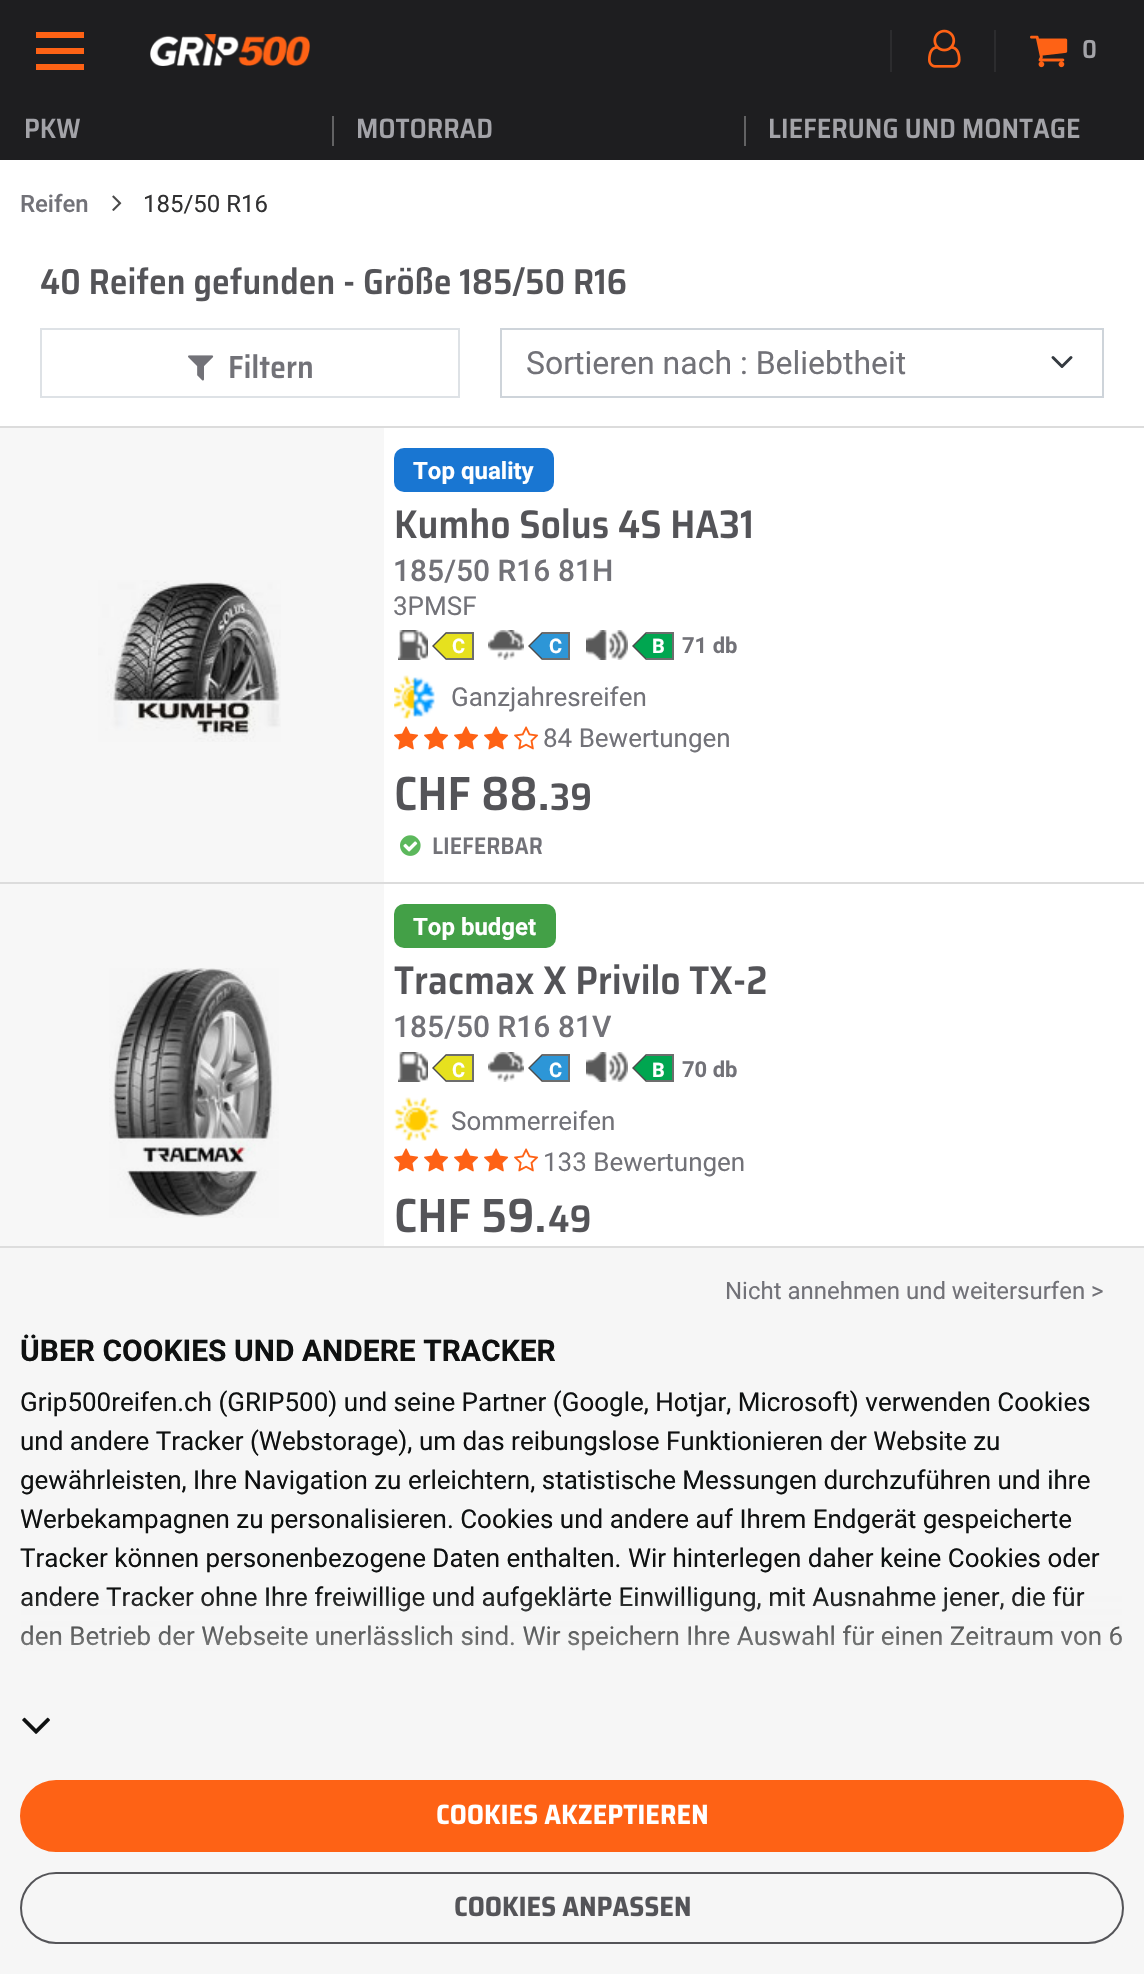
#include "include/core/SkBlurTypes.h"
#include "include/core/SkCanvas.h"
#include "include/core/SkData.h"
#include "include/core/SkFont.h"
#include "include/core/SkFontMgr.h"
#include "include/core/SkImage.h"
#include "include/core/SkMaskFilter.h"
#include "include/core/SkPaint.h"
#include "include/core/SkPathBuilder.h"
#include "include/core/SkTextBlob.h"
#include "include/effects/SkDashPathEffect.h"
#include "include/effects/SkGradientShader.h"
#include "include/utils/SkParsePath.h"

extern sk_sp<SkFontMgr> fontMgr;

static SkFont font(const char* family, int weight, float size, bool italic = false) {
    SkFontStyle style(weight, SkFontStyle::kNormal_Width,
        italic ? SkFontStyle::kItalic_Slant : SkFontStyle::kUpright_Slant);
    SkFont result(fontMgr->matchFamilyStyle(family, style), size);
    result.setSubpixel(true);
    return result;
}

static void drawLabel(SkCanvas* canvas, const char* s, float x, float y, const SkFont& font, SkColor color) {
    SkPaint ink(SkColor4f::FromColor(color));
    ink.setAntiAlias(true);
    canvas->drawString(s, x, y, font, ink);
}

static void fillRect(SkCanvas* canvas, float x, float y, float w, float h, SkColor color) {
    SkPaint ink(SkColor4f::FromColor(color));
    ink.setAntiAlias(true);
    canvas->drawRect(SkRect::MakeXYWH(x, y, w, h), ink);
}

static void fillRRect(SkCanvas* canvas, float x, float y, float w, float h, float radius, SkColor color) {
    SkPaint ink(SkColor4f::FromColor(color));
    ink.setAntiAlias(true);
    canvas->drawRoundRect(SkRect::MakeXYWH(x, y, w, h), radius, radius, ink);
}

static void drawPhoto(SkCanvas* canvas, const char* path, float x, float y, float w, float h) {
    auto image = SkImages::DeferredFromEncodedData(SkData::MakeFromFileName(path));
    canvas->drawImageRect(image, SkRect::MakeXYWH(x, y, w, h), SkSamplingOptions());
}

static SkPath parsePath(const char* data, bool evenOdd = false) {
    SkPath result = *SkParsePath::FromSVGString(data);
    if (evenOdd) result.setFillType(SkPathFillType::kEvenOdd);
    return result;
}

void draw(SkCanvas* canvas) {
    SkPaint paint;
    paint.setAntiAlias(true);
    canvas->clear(0xFFFFFFFF);
    fillRect(canvas, 0, 0, 1144, 160, 0xFF1E1E20);
    fillRect(canvas, 36, 32, 48, 6, 0xFFFE6215);
    fillRect(canvas, 36, 48, 48, 6, 0xFFFE6215);
    fillRect(canvas, 36, 64, 48, 6, 0xFFFE6215);
    drawPhoto(canvas, "assets/img1.png", 150, 34, 160, 32);
    fillRect(canvas, 890, 30, 2, 42, 0xFF2C2C2E);
    drawPhoto(canvas, "assets/img2.png", 928, 29, 33, 39);
    fillRect(canvas, 994, 30, 2, 42, 0xFF2C2C2E);
    drawPhoto(canvas, "assets/img3.png", 1030, 35, 38, 33);
    drawPhoto(canvas, "assets/img4.png", 1083, 39, 13, 20);
    drawPhoto(canvas, "assets/img5.png", 26, 118, 54, 20);
    fillRect(canvas, 332, 116, 2, 30, 0xFF626263);
    drawPhoto(canvas, "assets/img6.png", 358, 118, 134, 21);
    fillRect(canvas, 744, 116, 2, 30, 0xFF626263);
    drawPhoto(canvas, "assets/img7.png", 770, 118, 310, 21);
    SkFont font1 = font("Roboto", 500, 24);
    drawLabel(canvas, "Reifen", 20, 212, font1, 0xFF727278);
    drawPhoto(canvas, "assets/img8.png", 112, 195, 10, 16);
    SkFont font2 = font("Roboto", 400, 24);
    drawLabel(canvas, "185/50 R16", 143, 212, font2, 0xFF313132);
    fillRect(canvas, 0, 884, 384, 362, 0xFFF7F7F7);
    fillRect(canvas, 0, 428, 384, 454, 0xFFF7F7F7);
    drawPhoto(canvas, "assets/img9.png", 41, 267, 585, 35);
    paint.setStroke(true);
    paint.setStrokeWidth(2);
    paint.setColor(0xFFDEE2E6);
    canvas->drawRect(SkRect::MakeXYWH(41, 329, 418, 68), paint);
    drawPhoto(canvas, "assets/img10.png", 188, 355, 26, 26);
    drawPhoto(canvas, "assets/img11.png", 230, 354, 82, 25);
    paint.setStrokeWidth(3);
    paint.setStrokeCap(SkPaint::kRound_Cap);
    paint.setStrokeJoin(SkPaint::kRound_Join);
    paint.setColor(0xFF343A40);
    canvas->drawPath(parsePath("M1053 357.5L1062 366.5L1071 357.5"), paint);
    paint.setStrokeWidth(2);
    paint.setStrokeCap(SkPaint::kButt_Cap);
    paint.setStrokeJoin(SkPaint::kMiter_Join);
    paint.setColor(0xFFCED4DA);
    canvas->drawRect(SkRect::MakeXYWH(501, 329, 602, 68), paint);
    SkFont font3 = font("Roboto", 400, 32);
    drawLabel(canvas, "Sortieren nach : Beliebtheit", 526, 374, font3, 0xFF727278);
    fillRect(canvas, 0, 426, 1144, 2, 0xFFDCDCDC);
    fillRect(canvas, 0, 882, 1144, 2, 0xFFDCDCDC);
    drawPhoto(canvas, "assets/img12.png", 98, 580, 183, 162);
    fillRRect(canvas, 394, 448, 160, 44, 10, 0xFF1976D2);
    SkFont font4 = font("Roboto", 700, 24);
    drawLabel(canvas, "Top quality", 413, 479, font4, 0xFFFFFFFF);
    drawPhoto(canvas, "assets/img13.png", 396, 508, 355, 31);
    SkFont font5 = font("Roboto", 500, 30);
    drawLabel(canvas, "185/50 R16 81H", 393, 581, font5, 0xFF727278);
    SkFont font6 = font("Roboto", 400, 26);
    drawLabel(canvas, "3PMSF", 393, 615, font6, 0xFF727278);
    drawPhoto(canvas, "assets/img14.png", 398, 630, 30, 30);
    fillRect(canvas, 446, 634, 26, 24, 0xFFE6E11E);
    fillRect(canvas, 446, 632, 28, 2, 0xFF6D6D6D);
    fillRect(canvas, 472, 632, 2, 28, 0xFF6D6D6D);
    fillRect(canvas, 446, 658, 28, 2, 0xFF6D6D6D);
    paint.setStroke(false);
    paint.setColor(0xFF4C4C4C);
    canvas->drawPath(parsePath("M446 632V660L432 646Z"), paint);
    paint.setColor(0xFFE6E11E);
    canvas->drawPath(parsePath("M446 634V658L434 646Z"), paint);
    SkFont font7 = font("Roboto", 700, 20);
    drawLabel(canvas, "C", 452, 653, font7, 0xFFFFFFFF);
    drawPhoto(canvas, "assets/img15.png", 488, 630, 36, 30);
    fillRect(canvas, 542, 634, 26, 24, 0xFF2D96D7);
    fillRect(canvas, 542, 632, 28, 2, 0xFF6D6D6D);
    fillRect(canvas, 568, 632, 2, 28, 0xFF6D6D6D);
    fillRect(canvas, 542, 658, 28, 2, 0xFF6D6D6D);
    paint.setColor(0xFF4C4C4C);
    canvas->drawPath(parsePath("M542 632V660L528 646Z"), paint);
    paint.setColor(0xFF2D96D7);
    canvas->drawPath(parsePath("M542 634V658L530 646Z"), paint);
    drawLabel(canvas, "C", 549, 653, font7, 0xFFFFFFFF);
    drawPhoto(canvas, "assets/img16.png", 586, 630, 42, 30);
    fillRect(canvas, 646, 634, 26, 24, 0xFF00A650);
    fillRect(canvas, 646, 632, 28, 2, 0xFF6D6D6D);
    fillRect(canvas, 672, 632, 2, 28, 0xFF6D6D6D);
    fillRect(canvas, 646, 658, 28, 2, 0xFF6D6D6D);
    paint.setColor(0xFF4C4C4C);
    canvas->drawPath(parsePath("M646 632V660L632 646Z"), paint);
    paint.setColor(0xFF00A650);
    canvas->drawPath(parsePath("M646 634V658L634 646Z"), paint);
    drawLabel(canvas, "B", 652, 653, font7, 0xFFFFFFFF);
    SkFont font8 = font("Roboto", 700, 22);
    drawLabel(canvas, "71 db", 682, 653, font8, 0xFF727278);
    drawPhoto(canvas, "assets/img17.png", 394, 675, 41, 44);
    drawLabel(canvas, "Ganzjahresreifen", 451, 706, font6, 0xFF727278);
    drawPhoto(canvas, "assets/img18.png", 394, 726, 25, 24);
    drawPhoto(canvas, "assets/img18.png", 424, 726, 25, 24);
    drawPhoto(canvas, "assets/img18.png", 454, 726, 25, 24);
    drawPhoto(canvas, "assets/img18.png", 484, 726, 25, 24);
    drawPhoto(canvas, "assets/img19.png", 514, 726, 25, 24);
    drawLabel(canvas, "84 Bewertungen", 543, 747, font6, 0xFF727278);
    drawPhoto(canvas, "assets/img20.png", 396, 776, 151, 35);
    drawPhoto(canvas, "assets/img21.png", 551, 783, 39, 28);
    drawPhoto(canvas, "assets/img22.png", 400, 835, 21, 21);
    drawPhoto(canvas, "assets/img23.png", 433, 837, 109, 17);
    drawPhoto(canvas, "assets/img24.png", 109, 968, 170, 250);
    fillRRect(canvas, 394, 904, 162, 44, 10, 0xFF43A047);
    drawLabel(canvas, "Top budget", 413, 935, font4, 0xFFFFFFFF);
    drawPhoto(canvas, "assets/img25.png", 394, 964, 372, 31);
    drawLabel(canvas, "185/50 R16 81V", 393, 1037, font5, 0xFF727278);
    drawPhoto(canvas, "assets/img14.png", 398, 1052, 30, 30);
    fillRect(canvas, 446, 1056, 26, 24, 0xFFE6E11E);
    fillRect(canvas, 446, 1054, 28, 2, 0xFF6D6D6D);
    fillRect(canvas, 472, 1054, 2, 28, 0xFF6D6D6D);
    fillRect(canvas, 446, 1080, 28, 2, 0xFF6D6D6D);
    paint.setColor(0xFF4C4C4C);
    canvas->drawPath(parsePath("M446 1054V1082L432 1068Z"), paint);
    paint.setColor(0xFFE6E11E);
    canvas->drawPath(parsePath("M446 1056V1080L434 1068Z"), paint);
    drawLabel(canvas, "C", 452, 1077, font7, 0xFFFFFFFF);
    drawPhoto(canvas, "assets/img15.png", 488, 1052, 36, 30);
    fillRect(canvas, 542, 1056, 26, 24, 0xFF2D96D7);
    fillRect(canvas, 542, 1054, 28, 2, 0xFF6D6D6D);
    fillRect(canvas, 568, 1054, 2, 28, 0xFF6D6D6D);
    fillRect(canvas, 542, 1080, 28, 2, 0xFF6D6D6D);
    paint.setColor(0xFF4C4C4C);
    canvas->drawPath(parsePath("M542 1054V1082L528 1068Z"), paint);
    paint.setColor(0xFF2D96D7);
    canvas->drawPath(parsePath("M542 1056V1080L530 1068Z"), paint);
    drawLabel(canvas, "C", 549, 1077, font7, 0xFFFFFFFF);
    drawPhoto(canvas, "assets/img16.png", 586, 1052, 42, 30);
    fillRect(canvas, 646, 1056, 26, 24, 0xFF00A650);
    fillRect(canvas, 646, 1054, 28, 2, 0xFF6D6D6D);
    fillRect(canvas, 672, 1054, 2, 28, 0xFF6D6D6D);
    fillRect(canvas, 646, 1080, 28, 2, 0xFF6D6D6D);
    paint.setColor(0xFF4C4C4C);
    canvas->drawPath(parsePath("M646 1054V1082L632 1068Z"), paint);
    paint.setColor(0xFF00A650);
    canvas->drawPath(parsePath("M646 1056V1080L634 1068Z"), paint);
    drawLabel(canvas, "B", 652, 1077, font7, 0xFFFFFFFF);
    drawLabel(canvas, "70 db", 682, 1077, font8, 0xFF727278);
    drawPhoto(canvas, "assets/img26.png", 394, 1097, 45, 44);
    drawLabel(canvas, "Sommerreifen", 451, 1130, font6, 0xFF727278);
    drawPhoto(canvas, "assets/img18.png", 394, 1148, 25, 24);
    drawPhoto(canvas, "assets/img18.png", 424, 1148, 25, 24);
    drawPhoto(canvas, "assets/img18.png", 454, 1148, 25, 24);
    drawPhoto(canvas, "assets/img18.png", 484, 1148, 25, 24);
    drawPhoto(canvas, "assets/img19.png", 514, 1148, 25, 24);
    drawLabel(canvas, "133 Bewertungen", 543, 1171, font6, 0xFF727278);
    drawPhoto(canvas, "assets/img27.png", 396, 1198, 148, 35);
    drawPhoto(canvas, "assets/img28.png", 549, 1205, 41, 28);
    fillRect(canvas, 0, 1248, 1144, 726, 0xFFF6F6F6);
    fillRect(canvas, 0, 1246, 1144, 2, 0xFFDDDDDD);
    drawLabel(canvas, "Nicht annehmen und weitersurfen >", 725, 1299, font2, 0xFF727278);
    SkFont font9 = font("Roboto", 700, 30);
    drawLabel(canvas, "ÜBER COOKIES UND ANDERE TRACKER", 20, 1361, font9, 0xFF0F1111);
    drawLabel(canvas, "Grip500reifen.ch (GRIP500) und seine Partner (Google, Hotjar, Microsoft) verwenden Cookies", 20, 1411, font6, 0xFF0F1111);
    drawLabel(canvas, "und andere Tracker (Webstorage), um das reibungslose Funktionieren der Website zu", 20, 1450, font6, 0xFF0F1111);
    drawLabel(canvas, "gewährleisten, Ihre Navigation zu erleichtern, statistische Messungen durchzuführen und ihre", 20, 1489, font6, 0xFF0F1111);
    drawLabel(canvas, "Werbekampagnen zu personalisieren. Cookies und andere auf Ihrem Endgerät gespeicherte", 20, 1528, font6, 0xFF0F1111);
    drawLabel(canvas, "Tracker können personenbezogene Daten enthalten. Wir hinterlegen daher keine Cookies oder", 20, 1567, font6, 0xFF0F1111);
    drawLabel(canvas, "andere Tracker ohne Ihre freiwillige und aufgeklärte Einwilligung, mit Ausnahme jener, die für", 20, 1606, font6, 0xFF0F1111);
    drawLabel(canvas, "den Betrieb der Webseite unerlässlich sind. Wir speichern Ihre Auswahl für einen Zeitraum von 6", 20, 1645, font6, 0xFF0F1111);
    {
        const SkColor colors[] = {0x00F5F5F5, 0xCCF5F5F5};
        const float stops[] = {0, 1};
        const SkPoint ends[] = {{572, 1590}, {572, 1690}};
        paint.setShader(SkGradientShader::MakeLinear(ends, colors, stops, 2, SkTileMode::kClamp));
        paint.setAlpha(255);
    }
    canvas->drawRect(SkRect::MakeXYWH(21, 1593, 1101, 58), paint);
    drawPhoto(canvas, "assets/img29.png", 22, 1717, 28, 17);
    paint.setShader(nullptr);
    paint.setColor(0xFFFE6215);
    canvas->drawRoundRect(SkRect::MakeXYWH(21, 1781, 1102, 70), 35, 35, paint);
    paint.setStroke(true);
    canvas->drawRoundRect(SkRect::MakeXYWH(21, 1781, 1102, 70), 35, 35, paint);
    drawPhoto(canvas, "assets/img30.png", 437, 1804, 270, 21);
    paint.setColor(0xFF545458);
    canvas->drawRoundRect(SkRect::MakeXYWH(21, 1873, 1102, 70), 35, 35, paint);
    drawPhoto(canvas, "assets/img31.png", 455, 1896, 235, 21);
}
